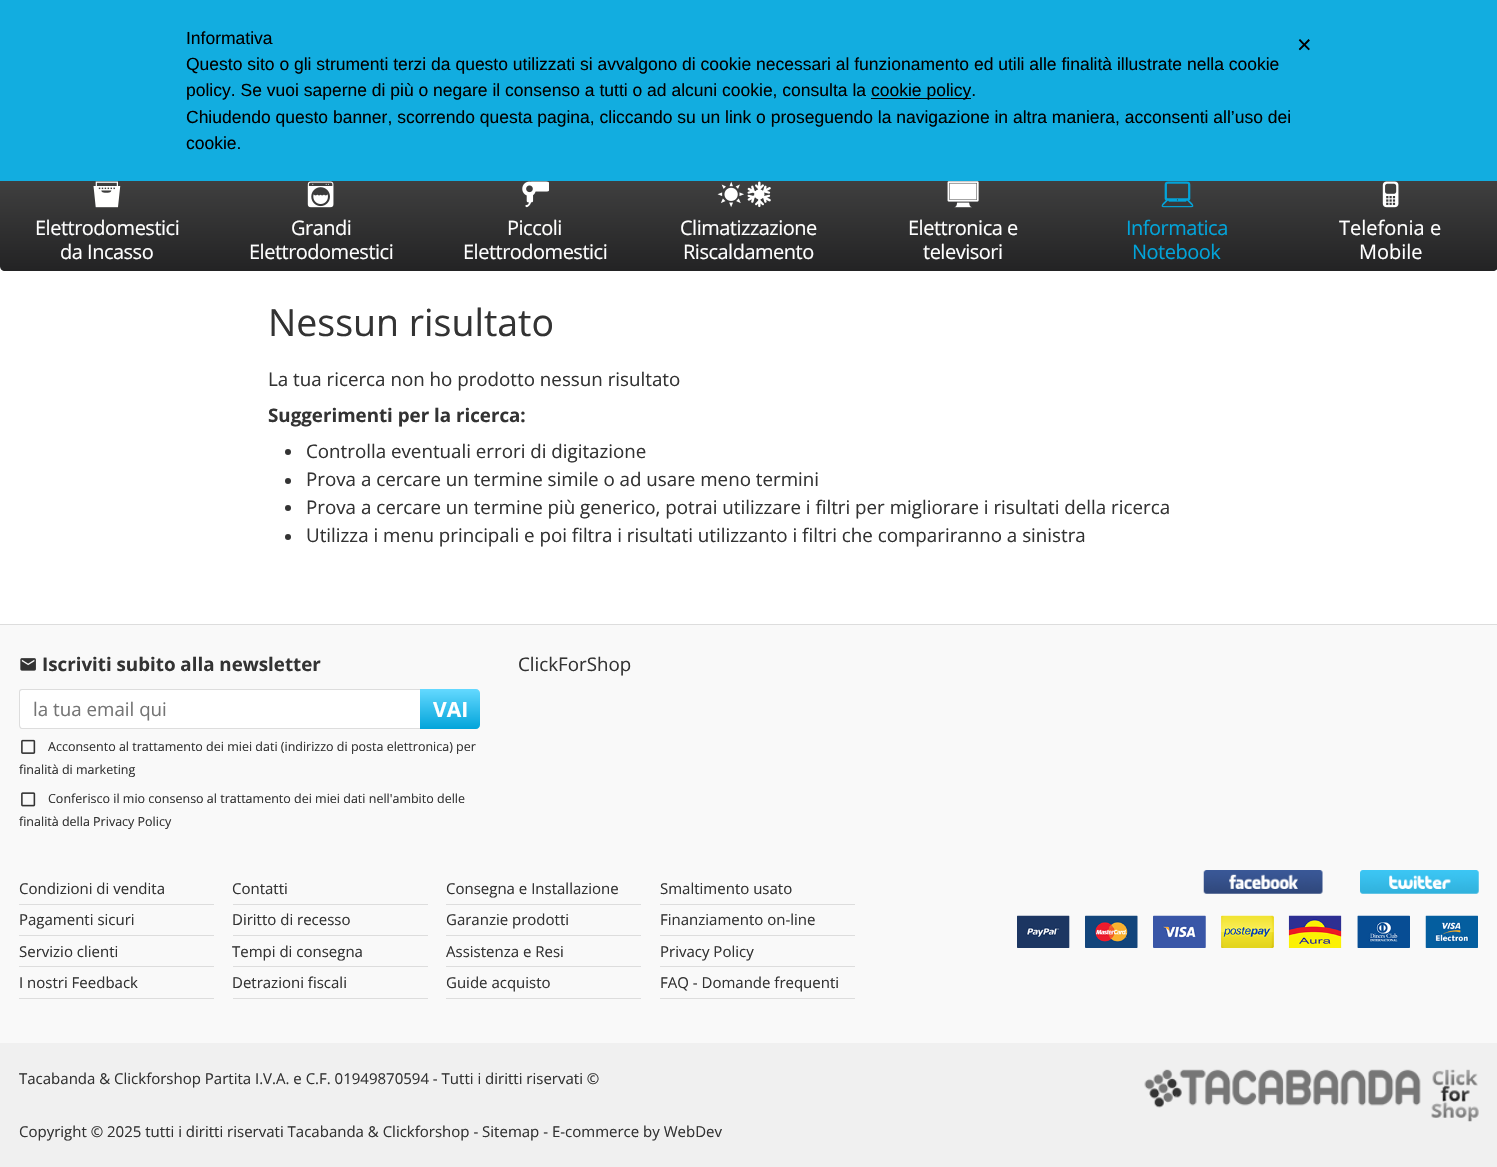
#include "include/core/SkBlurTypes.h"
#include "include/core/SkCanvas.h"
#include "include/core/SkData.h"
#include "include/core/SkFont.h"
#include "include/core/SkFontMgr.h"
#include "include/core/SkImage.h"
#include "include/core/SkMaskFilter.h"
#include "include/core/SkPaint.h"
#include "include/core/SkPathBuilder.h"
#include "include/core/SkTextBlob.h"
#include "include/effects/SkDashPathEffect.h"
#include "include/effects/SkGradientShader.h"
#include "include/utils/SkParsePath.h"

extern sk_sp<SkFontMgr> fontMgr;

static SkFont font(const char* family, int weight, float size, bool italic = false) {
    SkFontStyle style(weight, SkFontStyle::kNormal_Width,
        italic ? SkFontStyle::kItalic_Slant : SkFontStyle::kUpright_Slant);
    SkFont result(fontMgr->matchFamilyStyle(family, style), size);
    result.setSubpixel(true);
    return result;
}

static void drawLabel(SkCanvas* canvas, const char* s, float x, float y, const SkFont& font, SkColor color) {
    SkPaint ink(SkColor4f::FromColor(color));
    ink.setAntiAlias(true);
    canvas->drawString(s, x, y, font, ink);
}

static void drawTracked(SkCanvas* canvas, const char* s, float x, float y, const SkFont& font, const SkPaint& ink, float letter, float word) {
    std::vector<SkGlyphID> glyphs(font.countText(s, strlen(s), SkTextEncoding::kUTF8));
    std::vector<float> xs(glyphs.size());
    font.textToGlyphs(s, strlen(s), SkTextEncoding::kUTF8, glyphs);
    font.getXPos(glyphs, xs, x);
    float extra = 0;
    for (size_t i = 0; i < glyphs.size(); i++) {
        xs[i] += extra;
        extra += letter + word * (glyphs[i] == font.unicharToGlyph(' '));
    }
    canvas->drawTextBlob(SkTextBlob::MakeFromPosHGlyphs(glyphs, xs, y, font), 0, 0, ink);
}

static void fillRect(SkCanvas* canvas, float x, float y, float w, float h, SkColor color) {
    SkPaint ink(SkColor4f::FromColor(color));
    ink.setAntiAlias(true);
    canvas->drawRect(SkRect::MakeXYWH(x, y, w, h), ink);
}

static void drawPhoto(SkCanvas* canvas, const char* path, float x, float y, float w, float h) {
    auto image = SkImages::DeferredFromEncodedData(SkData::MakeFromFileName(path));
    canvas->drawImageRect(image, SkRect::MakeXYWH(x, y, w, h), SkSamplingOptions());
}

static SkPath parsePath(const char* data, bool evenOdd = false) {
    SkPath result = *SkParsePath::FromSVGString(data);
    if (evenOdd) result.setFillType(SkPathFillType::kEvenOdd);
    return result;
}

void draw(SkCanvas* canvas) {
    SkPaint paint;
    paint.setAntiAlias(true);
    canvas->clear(0xFFFFFFFF);
    {
        const SkColor colors[] = {0xFF434343, 0xFF232324};
        const float stops[] = {0, 1};
        const SkPoint ends[] = {{107, 169}, {107, 271}};
        paint.setShader(SkGradientShader::MakeLinear(ends, colors, stops, 2, SkTileMode::kClamp));
        paint.setAlpha(255);
    }
    canvas->drawPath(parsePath("M5 169H214V271H5C2 271 0 269 0 266V174C0 171 2 169 5 169Z"), paint);
    {
        const SkColor colors[] = {0xFF434343, 0xFF232324};
        const float stops[] = {0, 1};
        const SkPoint ends[] = {{1391, 169}, {1391, 271}};
        paint.setShader(SkGradientShader::MakeLinear(ends, colors, stops, 2, SkTileMode::kClamp));
        paint.setAlpha(255);
    }
    canvas->drawPath(parsePath("M1284 169H1493C1496 169 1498 171 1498 174V266C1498 269 1496 271 1493 271H1284Z"), paint);
    fillRect(canvas, 0, 0, 1497, 181, 0xFF12ADE0);
    SkFont font1 = font("Liberation Sans", 400, 17.5f);
    drawLabel(canvas, "Informativa", 186, 44, font1, 0xFF000000);
    drawLabel(canvas, "Questo sito o gli strumenti terzi da questo utilizzati si avvalgono di cookie necessari al funzionamento ed utili alle finalità illustrate nella cookie", 186, 70, font1, 0xFF000000);
    drawLabel(canvas, "policy. Se vuoi saperne di più o negare il consenso a tutti o ad alcuni cookie, consulta la", 186, 96, font1, 0xFF000000);
    fillRect(canvas, 871, 98, 100, 1, 0xFF000000);
    drawLabel(canvas, "cookie policy.", 871, 96, font1, 0xFF000000);
    drawLabel(canvas, "Chiudendo questo banner, scorrendo questa pagina, cliccando su un link o proseguendo la navigazione in altra maniera, acconsenti all’uso dei", 186, 123, font1, 0xFF000000);
    drawLabel(canvas, "cookie.", 186, 149, font1, 0xFF000000);
    SkFont font2 = font("Liberation Sans", 400, 25);
    drawLabel(canvas, "×", 1297, 53, font2, 0xFF000000);
    drawPhoto(canvas, "assets/img1.png", 93, 181, 28, 27);
    SkFont font3 = font("Open Sans", 400, 20);
    paint.setShader(nullptr);
    paint.setColor(0xFFFFFFFF);
    drawTracked(canvas, "Elettrodomestici", 35, 235, font3, paint, -0.5f, 0);
    drawTracked(canvas, "da Incasso", 60, 259, font3, paint, -0.5f, 0);
    {
        const SkColor colors[] = {0xFF434343, 0xFF232324};
        const float stops[] = {0, 1};
        const SkPoint ends[] = {{321, 169}, {321, 271}};
        paint.setShader(SkGradientShader::MakeLinear(ends, colors, stops, 2, SkTileMode::kClamp));
        paint.setAlpha(255);
    }
    canvas->drawRect(SkRect::MakeXYWH(214, 181, 214, 90), paint);
    drawPhoto(canvas, "assets/img2.png", 307, 181, 27, 27);
    paint.setShader(nullptr);
    paint.setColor(0xFFFFFFFF);
    drawTracked(canvas, "Grandi", 291, 235, font3, paint, -0.5f, 0);
    drawTracked(canvas, "Elettrodomestici", 249, 259, font3, paint, -0.5f, 0);
    {
        const SkColor colors[] = {0xFF434343, 0xFF232324};
        const float stops[] = {0, 1};
        const SkPoint ends[] = {{534, 169}, {534, 271}};
        paint.setShader(SkGradientShader::MakeLinear(ends, colors, stops, 2, SkTileMode::kClamp));
        paint.setAlpha(255);
    }
    canvas->drawRect(SkRect::MakeXYWH(428, 181, 213, 90), paint);
    drawPhoto(canvas, "assets/img3.png", 522, 181, 27, 27);
    paint.setShader(nullptr);
    paint.setColor(0xFFFFFFFF);
    drawTracked(canvas, "Piccoli", 507, 235, font3, paint, -0.5f, 0);
    drawTracked(canvas, "Elettrodomestici", 463, 259, font3, paint, -0.5f, 0);
    {
        const SkColor colors[] = {0xFF434343, 0xFF232324};
        const float stops[] = {0, 1};
        const SkPoint ends[] = {{749, 169}, {749, 271}};
        paint.setShader(SkGradientShader::MakeLinear(ends, colors, stops, 2, SkTileMode::kClamp));
        paint.setAlpha(255);
    }
    canvas->drawRect(SkRect::MakeXYWH(641, 181, 215, 90), paint);
    drawPhoto(canvas, "assets/img4.png", 717, 181, 54, 27);
    paint.setShader(nullptr);
    paint.setColor(0xFFFFFFFF);
    drawTracked(canvas, "Climatizzazione", 680, 235, font3, paint, -0.5f, 0);
    drawTracked(canvas, "Riscaldamento", 683, 259, font3, paint, -0.5f, 0);
    {
        const SkColor colors[] = {0xFF434343, 0xFF232324};
        const float stops[] = {0, 1};
        const SkPoint ends[] = {{963, 169}, {963, 271}};
        paint.setShader(SkGradientShader::MakeLinear(ends, colors, stops, 2, SkTileMode::kClamp));
        paint.setAlpha(255);
    }
    canvas->drawRect(SkRect::MakeXYWH(856, 181, 214, 90), paint);
    drawPhoto(canvas, "assets/img5.png", 947, 181, 32, 27);
    paint.setShader(nullptr);
    paint.setColor(0xFFFFFFFF);
    drawTracked(canvas, "Elettronica e", 908, 235, font3, paint, -0.5f, 0);
    drawTracked(canvas, "televisori", 923, 259, font3, paint, -0.5f, 0);
    {
        const SkColor colors[] = {0xFF434343, 0xFF232324};
        const float stops[] = {0, 1};
        const SkPoint ends[] = {{1177, 169}, {1177, 271}};
        paint.setShader(SkGradientShader::MakeLinear(ends, colors, stops, 2, SkTileMode::kClamp));
        paint.setAlpha(255);
    }
    canvas->drawRect(SkRect::MakeXYWH(1070, 181, 214, 90), paint);
    drawPhoto(canvas, "assets/img6.png", 1161, 181, 33, 27);
    paint.setShader(nullptr);
    paint.setColor(0xFF02A4DA);
    drawTracked(canvas, "Informatica", 1126, 235, font3, paint, -0.5f, 0);
    drawTracked(canvas, "Notebook", 1132, 259, font3, paint, -0.5f, 0);
    drawPhoto(canvas, "assets/img7.png", 1382, 181, 17, 27);
    drawLabel(canvas, "Telefonia e", 1339, 235, font3, 0xFFFFFFFF);
    drawLabel(canvas, "Mobile", 1359, 259, font3, 0xFFFFFFFF);
    SkFont font4 = font("Open Sans", 400, 37.5f);
    drawLabel(canvas, "Nessun risultato", 268, 336, font4, 0xFF333333);
    SkFont font5 = font("Open Sans", 400, 18.75f);
    drawLabel(canvas, "La tua ricerca non ho prodotto nessun risultato", 268, 386, font5, 0xFF333333);
    SkFont font6 = font("Open Sans", 700, 18.75f);
    drawLabel(canvas, "Suggerimenti per la ricerca:", 268, 422, font6, 0xFF333333);
    paint.setColor(0xFF333333);
    canvas->drawCircle(288, 452, 3, paint);
    drawLabel(canvas, "Controlla eventuali errori di digitazione", 306, 458, font5, 0xFF333333);
    canvas->drawCircle(288, 481, 3, paint);
    drawLabel(canvas, "Prova a cercare un termine simile o ad usare meno termini", 306, 486, font5, 0xFF333333);
    canvas->drawCircle(288, 508, 3, paint);
    drawLabel(canvas, "Prova a cercare un termine più generico, potrai utilizzare i filtri per migliorare i risultati della ricerca", 306, 514, font5, 0xFF333333);
    canvas->drawCircle(288, 537, 3, paint);
    drawLabel(canvas, "Utilizza i menu principali e poi filtra i risultati utilizzanto i filtri che compariranno a sinistra", 306, 542, font5, 0xFF333333);
    fillRect(canvas, 0, 625, 1497, 418, 0xFFF9F9F9);
    fillRect(canvas, 0, 624, 1497, 1, 0xFFDDDDDD);
    drawPhoto(canvas, "assets/img8.png", 20, 658, 16, 13);
    drawLabel(canvas, "Iscriviti subito alla newsletter", 42, 671, font6, 0xFF333333);
    paint.setColor(0xFFFFFFFF);
    canvas->drawPath(parsePath("M23 689H420V729H23C21 729 19 727 19 725V693C19 691 21 689 23 689Z"), paint);
    paint.setColor(0xFFDDDDDD);
    canvas->drawPath(parsePath("M22 689H420V729H22C20 729 19 727 19 725V692C19 690 20 689 22 689ZM22 690H420V728H22C21 728 20 726 20 725V692C20 691 21 690 22 690Z", true), paint);
    drawLabel(canvas, "la tua email qui", 33, 716, font5, 0xFF757575);
    {
        const SkColor colors[] = {0xFF64D9FF, 0xFF02A4DA};
        const float stops[] = {0, 1};
        const SkPoint ends[] = {{450, 689}, {450, 729}};
        paint.setShader(SkGradientShader::MakeLinear(ends, colors, stops, 2, SkTileMode::kClamp));
        paint.setAlpha(255);
    }
    canvas->drawPath(parsePath("M420 689H476C478 689 480 691 480 693V725C480 727 478 729 476 729H420Z"), paint);
    SkFont font7 = font("Open Sans", 700, 21);
    drawLabel(canvas, "VAI", 433, 717, font7, 0xFFFFFFFF);
    drawPhoto(canvas, "assets/img9.png", 21, 739, 15, 15);
    SkFont font8 = font("Open Sans", 400, 12.5f);
    drawLabel(canvas, "Acconsento al trattamento dei miei dati (indirizzo di posta elettronica) per", 48, 751, font8, 0xFF333333);
    drawLabel(canvas, "finalità di marketing", 19, 774, font8, 0xFF333333);
    drawPhoto(canvas, "assets/img10.png", 21, 792, 15, 15);
    drawLabel(canvas, "Conferisco il mio consenso al trattamento dei miei dati nell'ambito delle", 48, 803, font8, 0xFF333333);
    drawLabel(canvas, "finalità della Privacy Policy", 19, 826, font8, 0xFF333333);
    drawLabel(canvas, "ClickForShop", 518, 671, font5, 0xFF333333);
    fillRect(canvas, 19, 904, 195, 1, 0xFFDDDDDD);
    SkFont font9 = font("Open Sans", 400, 15);
    drawLabel(canvas, "Condizioni di vendita", 19, 894, font9, 0xFF333333);
    fillRect(canvas, 19, 935, 195, 1, 0xFFDDDDDD);
    drawLabel(canvas, "Pagamenti sicuri", 19, 925, font9, 0xFF333333);
    fillRect(canvas, 19, 966, 195, 1, 0xFFDDDDDD);
    drawLabel(canvas, "Servizio clienti", 19, 957, font9, 0xFF333333);
    fillRect(canvas, 19, 998, 195, 1, 0xFFDDDDDD);
    drawLabel(canvas, "I nostri Feedback", 19, 988, font9, 0xFF333333);
    fillRect(canvas, 233, 904, 195, 1, 0xFFDDDDDD);
    drawLabel(canvas, "Contatti", 232, 894, font9, 0xFF333333);
    fillRect(canvas, 233, 935, 195, 1, 0xFFDDDDDD);
    drawLabel(canvas, "Diritto di recesso", 232, 925, font9, 0xFF333333);
    fillRect(canvas, 233, 966, 195, 1, 0xFFDDDDDD);
    drawLabel(canvas, "Tempi di consegna", 232, 957, font9, 0xFF333333);
    fillRect(canvas, 233, 998, 195, 1, 0xFFDDDDDD);
    drawLabel(canvas, "Detrazioni fiscali", 232, 988, font9, 0xFF333333);
    fillRect(canvas, 446, 904, 195, 1, 0xFFDDDDDD);
    drawLabel(canvas, "Consegna e Installazione", 446, 894, font9, 0xFF333333);
    fillRect(canvas, 446, 935, 195, 1, 0xFFDDDDDD);
    drawLabel(canvas, "Garanzie prodotti", 446, 925, font9, 0xFF333333);
    fillRect(canvas, 446, 966, 195, 1, 0xFFDDDDDD);
    drawLabel(canvas, "Assistenza e Resi", 446, 957, font9, 0xFF333333);
    fillRect(canvas, 446, 998, 195, 1, 0xFFDDDDDD);
    drawLabel(canvas, "Guide acquisto", 446, 988, font9, 0xFF333333);
    fillRect(canvas, 660, 904, 195, 1, 0xFFDDDDDD);
    drawLabel(canvas, "Smaltimento usato", 660, 894, font9, 0xFF333333);
    fillRect(canvas, 660, 935, 195, 1, 0xFFDDDDDD);
    drawLabel(canvas, "Finanziamento on-line", 660, 925, font9, 0xFF333333);
    fillRect(canvas, 660, 966, 195, 1, 0xFFDDDDDD);
    drawLabel(canvas, "Privacy Policy", 660, 957, font9, 0xFF333333);
    fillRect(canvas, 660, 998, 195, 1, 0xFFDDDDDD);
    drawLabel(canvas, "FAQ - Domande frequenti", 660, 988, font9, 0xFF333333);
    drawPhoto(canvas, "assets/img11.png", 1203, 870, 120, 24);
    drawPhoto(canvas, "assets/img12.png", 1360, 870, 119, 24);
    drawPhoto(canvas, "assets/img13.png", 1017, 915, 461, 33);
    fillRect(canvas, 0, 1043, 1497, 124, 0xFFF0F0F0);
    drawLabel(canvas, "Tacabanda & Clickforshop Partita I.V.A. e C.F. 01949870594 - Tutti i diritti riservati ©", 19, 1084, font9, 0xFF333333);
    drawPhoto(canvas, "assets/img14.png", 1144, 1069, 335, 53);
    drawLabel(canvas, "Copyright © 2025 tutti i diritti riservati Tacabanda & Clickforshop - Sitemap - E-commerce by WebDev", 19, 1137, font9, 0xFF333333);
}
